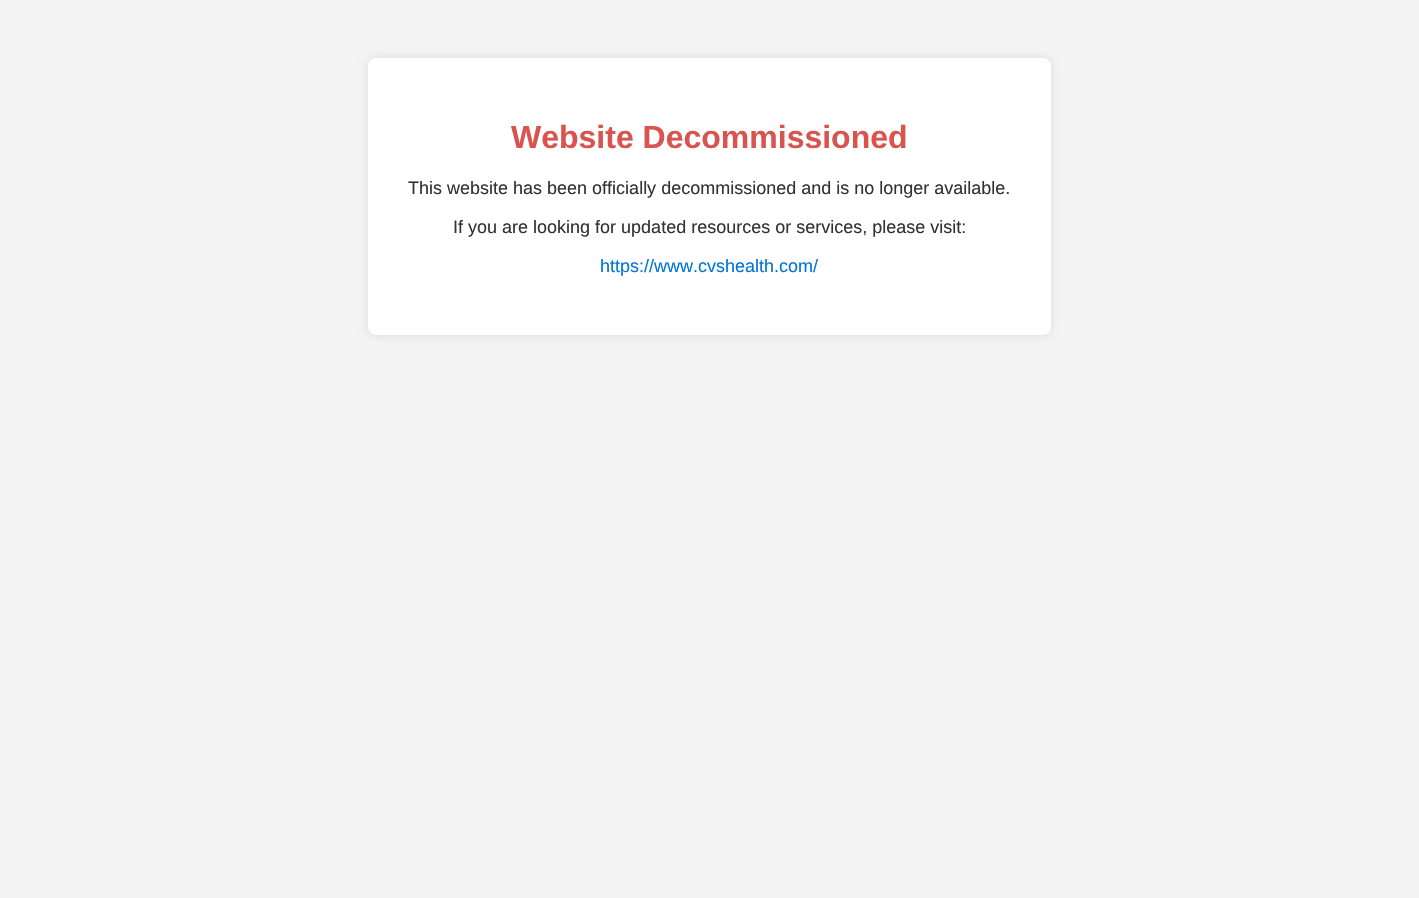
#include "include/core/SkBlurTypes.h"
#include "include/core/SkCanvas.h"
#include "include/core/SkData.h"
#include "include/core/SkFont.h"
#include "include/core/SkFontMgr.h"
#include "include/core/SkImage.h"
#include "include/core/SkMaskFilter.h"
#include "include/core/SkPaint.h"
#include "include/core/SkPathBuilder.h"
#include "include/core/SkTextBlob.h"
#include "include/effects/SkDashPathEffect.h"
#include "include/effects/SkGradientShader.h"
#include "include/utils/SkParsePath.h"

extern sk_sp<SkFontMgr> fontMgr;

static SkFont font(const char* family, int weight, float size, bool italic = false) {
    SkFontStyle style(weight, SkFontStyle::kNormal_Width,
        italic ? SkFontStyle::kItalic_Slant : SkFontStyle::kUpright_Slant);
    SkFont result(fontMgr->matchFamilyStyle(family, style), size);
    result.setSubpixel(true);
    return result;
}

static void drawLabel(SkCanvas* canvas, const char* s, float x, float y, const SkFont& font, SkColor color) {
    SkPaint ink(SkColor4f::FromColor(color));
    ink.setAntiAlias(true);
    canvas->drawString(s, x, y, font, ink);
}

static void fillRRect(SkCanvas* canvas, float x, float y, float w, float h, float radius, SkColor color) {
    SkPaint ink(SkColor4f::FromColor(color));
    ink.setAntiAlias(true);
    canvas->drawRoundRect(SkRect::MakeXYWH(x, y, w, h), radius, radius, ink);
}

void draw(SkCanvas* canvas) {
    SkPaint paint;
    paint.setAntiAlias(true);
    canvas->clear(0xFFF4F4F4);
    paint.setColor(0x1A000000);
    paint.setMaskFilter(SkMaskFilter::MakeBlur(kNormal_SkBlurStyle, 5));
    canvas->drawRoundRect(SkRect::MakeXYWH(368, 58, 683, 277), 8, 8, paint);
    paint.setMaskFilter(nullptr);
    fillRRect(canvas, 368, 58, 683, 277, 8, 0xFFFFFFFF);
    SkFont font1 = font("Liberation Sans", 700, 32);
    drawLabel(canvas, "Website Decommissioned", 511, 148, font1, 0xFFD9534F);
    SkFont font2 = font("Liberation Sans", 400, 18);
    drawLabel(canvas, "This website has been officially decommissioned and is no longer available.", 408, 194, font2, 0xFF333333);
    drawLabel(canvas, "If you are looking for updated resources or services, please visit:", 453, 233, font2, 0xFF333333);
    drawLabel(canvas, "https://www.cvshealth.com/", 600, 272, font2, 0xFF0275D8);
}
